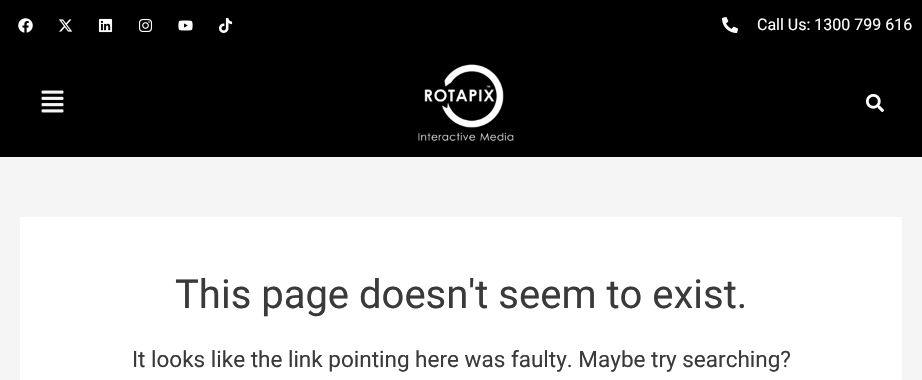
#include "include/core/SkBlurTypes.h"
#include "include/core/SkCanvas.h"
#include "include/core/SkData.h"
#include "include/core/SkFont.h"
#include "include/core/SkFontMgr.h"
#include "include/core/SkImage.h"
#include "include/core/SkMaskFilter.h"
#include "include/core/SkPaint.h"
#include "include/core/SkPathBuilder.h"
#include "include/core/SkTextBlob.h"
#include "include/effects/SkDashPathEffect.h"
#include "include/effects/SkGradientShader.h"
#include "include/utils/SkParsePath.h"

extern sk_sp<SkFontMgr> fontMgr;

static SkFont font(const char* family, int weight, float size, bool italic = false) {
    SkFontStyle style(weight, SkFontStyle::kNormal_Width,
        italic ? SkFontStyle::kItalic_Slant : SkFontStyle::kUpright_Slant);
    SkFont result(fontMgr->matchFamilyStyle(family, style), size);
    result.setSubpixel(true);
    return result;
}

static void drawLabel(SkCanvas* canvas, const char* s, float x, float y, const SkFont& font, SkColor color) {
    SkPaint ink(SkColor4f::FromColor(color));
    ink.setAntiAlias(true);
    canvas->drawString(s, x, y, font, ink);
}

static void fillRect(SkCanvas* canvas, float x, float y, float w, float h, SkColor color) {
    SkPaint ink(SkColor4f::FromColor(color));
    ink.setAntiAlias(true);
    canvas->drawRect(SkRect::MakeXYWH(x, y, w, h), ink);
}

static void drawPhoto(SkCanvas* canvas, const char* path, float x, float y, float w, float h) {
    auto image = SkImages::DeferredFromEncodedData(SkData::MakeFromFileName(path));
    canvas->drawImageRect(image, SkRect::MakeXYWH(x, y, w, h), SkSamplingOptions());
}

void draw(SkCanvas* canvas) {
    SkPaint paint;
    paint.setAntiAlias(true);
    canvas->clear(0xFFF5F5F5);
    fillRect(canvas, 0, 0, 922, 157, 0xFF000000);
    drawPhoto(canvas, "assets/img1.png", 18, 18, 15, 15);
    drawPhoto(canvas, "assets/img2.png", 58, 19, 15, 13);
    drawPhoto(canvas, "assets/img3.png", 98, 18, 15, 15);
    drawPhoto(canvas, "assets/img4.png", 139, 19, 14, 13);
    drawPhoto(canvas, "assets/img5.png", 178, 20, 15, 11);
    drawPhoto(canvas, "assets/img6.png", 219, 18, 14, 15);
    drawPhoto(canvas, "assets/img7.png", 722, 17, 16, 16);
    SkFont font1 = font("Roboto", 400, 16);
    drawLabel(canvas, "Call Us: 1300 799 616", 757, 30, font1, 0xFFFFFFFF);
    drawPhoto(canvas, "assets/img8.png", 41, 90, 23, 23);
    drawPhoto(canvas, "assets/img9.png", 418, 64, 96, 77);
    drawPhoto(canvas, "assets/img10.png", 866, 94, 18, 18);
    fillRect(canvas, 20, 217, 882, 163, 0xFFFFFFFF);
    SkFont font2 = font("Roboto", 400, 40);
    drawLabel(canvas, "This page doesn't seem to exist.", 175, 308, font2, 0xFF3A3A3A);
    SkFont font3 = font("Roboto", 400, 22.5f);
    drawLabel(canvas, "It looks like the link pointing here was faulty. Maybe try searching?", 132, 367, font3, 0xFF3A3A3A);
}
